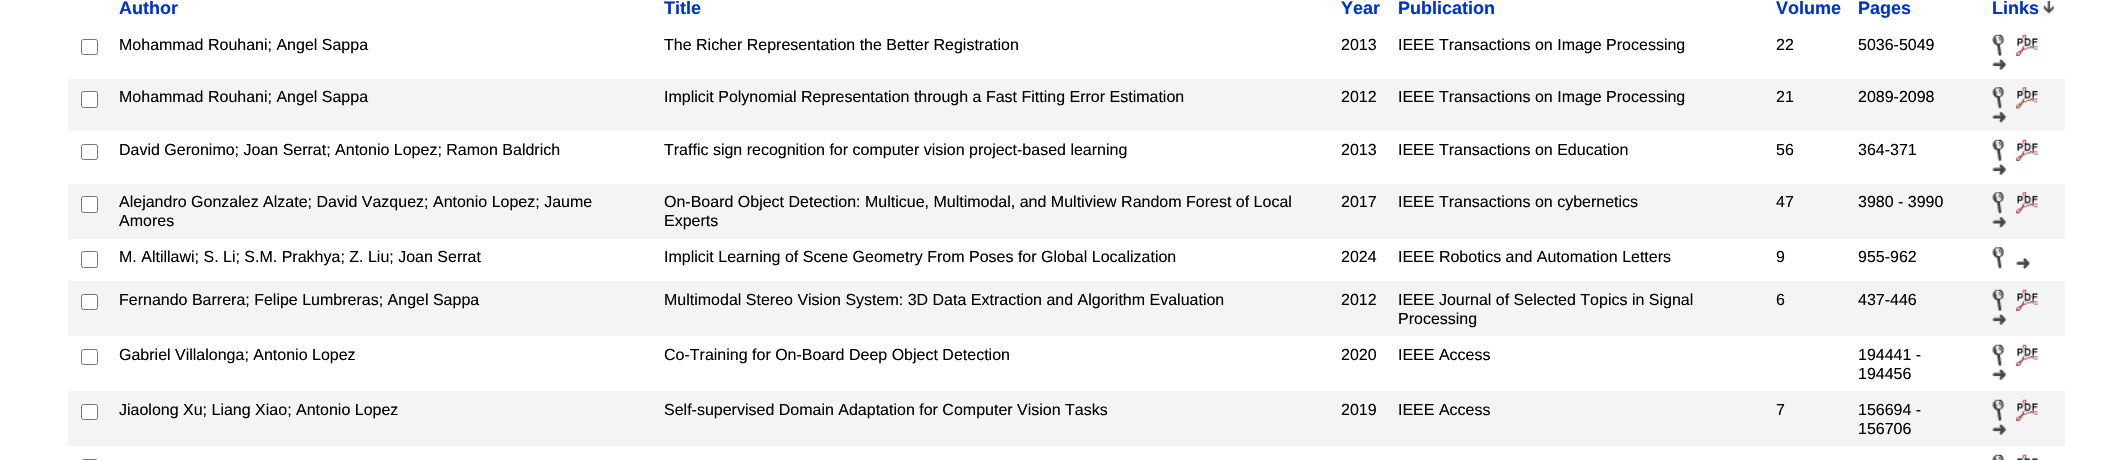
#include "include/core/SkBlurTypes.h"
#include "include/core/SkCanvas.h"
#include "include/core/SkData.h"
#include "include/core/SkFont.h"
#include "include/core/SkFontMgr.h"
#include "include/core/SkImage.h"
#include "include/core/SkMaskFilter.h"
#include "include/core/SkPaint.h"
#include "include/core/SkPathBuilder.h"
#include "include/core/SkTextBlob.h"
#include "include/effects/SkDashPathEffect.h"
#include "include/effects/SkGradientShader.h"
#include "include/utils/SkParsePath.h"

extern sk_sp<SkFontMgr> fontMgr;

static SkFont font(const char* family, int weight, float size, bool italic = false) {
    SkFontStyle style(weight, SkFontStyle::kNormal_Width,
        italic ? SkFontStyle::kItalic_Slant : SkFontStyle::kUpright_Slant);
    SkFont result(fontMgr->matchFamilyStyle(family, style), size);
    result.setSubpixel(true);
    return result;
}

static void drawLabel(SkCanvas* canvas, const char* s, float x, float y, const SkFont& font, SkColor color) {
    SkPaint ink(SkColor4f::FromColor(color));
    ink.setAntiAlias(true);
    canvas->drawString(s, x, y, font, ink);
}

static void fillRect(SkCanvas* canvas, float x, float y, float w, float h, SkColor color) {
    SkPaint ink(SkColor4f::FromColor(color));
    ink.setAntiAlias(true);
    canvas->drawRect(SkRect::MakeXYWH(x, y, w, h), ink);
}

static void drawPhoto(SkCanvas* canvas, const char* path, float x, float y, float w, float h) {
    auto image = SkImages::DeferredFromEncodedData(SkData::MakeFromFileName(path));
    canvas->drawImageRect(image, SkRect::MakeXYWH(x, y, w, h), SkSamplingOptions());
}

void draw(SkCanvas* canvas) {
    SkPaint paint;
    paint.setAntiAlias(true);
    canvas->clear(0xFFFFFFFF);
    SkFont font1 = font("Liberation Sans", 700, 18);
    drawLabel(canvas, "Author", 119, 14, font1, 0xFF0033CC);
    drawLabel(canvas, "Title", 664, 14, font1, 0xFF0033CC);
    drawLabel(canvas, "Year", 1341, 14, font1, 0xFF0033CC);
    drawLabel(canvas, "Publication", 1398, 14, font1, 0xFF0033CC);
    drawLabel(canvas, "Volume", 1776, 14, font1, 0xFF0033CC);
    drawLabel(canvas, "Pages", 1858, 14, font1, 0xFF0033CC);
    drawLabel(canvas, "Links", 1992, 14, font1, 0xFF0033CC);
    drawPhoto(canvas, "assets/img1.png", 2043, 1, 11, 13);
    paint.setStroke(true);
    paint.setStrokeWidth(1);
    paint.setColor(0xFF767676);
    canvas->drawRoundRect(SkRect::MakeXYWH(81.5f, 39.5f, 16, 15), 2, 2, paint);
    SkFont font2 = font("Liberation Sans", 400, 16);
    drawLabel(canvas, "Mohammad Rouhani; Angel Sappa", 119, 50, font2, 0xFF000000);
    drawLabel(canvas, "The Richer Representation the Better Registration", 664, 50, font2, 0xFF000000);
    drawLabel(canvas, "2013", 1341, 50, font2, 0xFF000000);
    drawLabel(canvas, "IEEE Transactions on Image Processing", 1398, 50, font2, 0xFF000000);
    drawLabel(canvas, "22", 1776, 50, font2, 0xFF000000);
    drawLabel(canvas, "5036-5049", 1858, 50, font2, 0xFF000000);
    drawPhoto(canvas, "assets/img2.png", 1992, 34, 12, 22);
    drawPhoto(canvas, "assets/img3.png", 2016, 34, 22, 22);
    drawPhoto(canvas, "assets/img4.png", 1992, 59, 15, 11);
    fillRect(canvas, 68, 79, 1997, 52, 0xFFF4F4F4);
    paint.setStroke(false);
    paint.setColor(0xFFFFFFFF);
    canvas->drawRoundRect(SkRect::MakeXYWH(81.5f, 91.5f, 16, 16), 2, 2, paint);
    paint.setStroke(true);
    paint.setColor(0xFF767676);
    canvas->drawRoundRect(SkRect::MakeXYWH(81.5f, 91.5f, 16, 16), 2, 2, paint);
    drawLabel(canvas, "Mohammad Rouhani; Angel Sappa", 119, 102, font2, 0xFF000000);
    drawLabel(canvas, "Implicit Polynomial Representation through a Fast Fitting Error Estimation", 664, 102, font2, 0xFF000000);
    drawLabel(canvas, "2012", 1341, 102, font2, 0xFF000000);
    drawLabel(canvas, "IEEE Transactions on Image Processing", 1398, 102, font2, 0xFF000000);
    drawLabel(canvas, "21", 1776, 102, font2, 0xFF000000);
    drawLabel(canvas, "2089-2098", 1858, 102, font2, 0xFF000000);
    drawPhoto(canvas, "assets/img5.png", 1992, 87, 12, 22);
    drawPhoto(canvas, "assets/img6.png", 2016, 87, 22, 22);
    drawPhoto(canvas, "assets/img7.png", 1992, 112, 15, 11);
    canvas->drawRoundRect(SkRect::MakeXYWH(81.5f, 144.5f, 16, 15), 2, 2, paint);
    drawLabel(canvas, "David Geronimo; Joan Serrat; Antonio Lopez; Ramon Baldrich", 119, 155, font2, 0xFF000000);
    drawLabel(canvas, "Traffic sign recognition for computer vision project-based learning", 664, 155, font2, 0xFF000000);
    drawLabel(canvas, "2013", 1341, 155, font2, 0xFF000000);
    drawLabel(canvas, "IEEE Transactions on Education", 1398, 155, font2, 0xFF000000);
    drawLabel(canvas, "56", 1776, 155, font2, 0xFF000000);
    drawLabel(canvas, "364-371", 1858, 155, font2, 0xFF000000);
    drawPhoto(canvas, "assets/img2.png", 1992, 139, 12, 22);
    drawPhoto(canvas, "assets/img3.png", 2016, 139, 22, 22);
    drawPhoto(canvas, "assets/img4.png", 1992, 164, 15, 11);
    fillRect(canvas, 68, 184, 1997, 55, 0xFFF4F4F4);
    paint.setStroke(false);
    paint.setColor(0xFFFFFFFF);
    canvas->drawRoundRect(SkRect::MakeXYWH(81.5f, 196.5f, 16, 16), 2, 2, paint);
    paint.setStroke(true);
    paint.setColor(0xFF767676);
    canvas->drawRoundRect(SkRect::MakeXYWH(81.5f, 196.5f, 16, 16), 2, 2, paint);
    drawLabel(canvas, "Alejandro Gonzalez Alzate; David Vazquez; Antonio Lopez; Jaume", 119, 207, font2, 0xFF000000);
    drawLabel(canvas, "Amores", 119, 226, font2, 0xFF000000);
    drawLabel(canvas, "On-Board Object Detection: Multicue, Multimodal, and Multiview Random Forest of Local", 664, 207, font2, 0xFF000000);
    drawLabel(canvas, "Experts", 664, 226, font2, 0xFF000000);
    drawLabel(canvas, "2017", 1341, 207, font2, 0xFF000000);
    drawLabel(canvas, "IEEE Transactions on cybernetics", 1398, 207, font2, 0xFF000000);
    drawLabel(canvas, "47", 1776, 207, font2, 0xFF000000);
    drawLabel(canvas, "3980 - 3990", 1858, 207, font2, 0xFF000000);
    drawPhoto(canvas, "assets/img5.png", 1992, 192, 12, 22);
    drawPhoto(canvas, "assets/img6.png", 2016, 192, 22, 22);
    drawPhoto(canvas, "assets/img7.png", 1992, 217, 15, 11);
    canvas->drawRoundRect(SkRect::MakeXYWH(81.5f, 251.5f, 16, 16), 2, 2, paint);
    drawLabel(canvas, "M. Altillawi; S. Li; S.M. Prakhya; Z. Liu; Joan Serrat", 119, 262, font2, 0xFF000000);
    drawLabel(canvas, "Implicit Learning of Scene Geometry From Poses for Global Localization", 664, 262, font2, 0xFF000000);
    drawLabel(canvas, "2024", 1341, 262, font2, 0xFF000000);
    drawLabel(canvas, "IEEE Robotics and Automation Letters", 1398, 262, font2, 0xFF000000);
    drawLabel(canvas, "9", 1776, 262, font2, 0xFF000000);
    drawLabel(canvas, "955-962", 1858, 262, font2, 0xFF000000);
    drawPhoto(canvas, "assets/img8.png", 1992, 247, 12, 22);
    drawPhoto(canvas, "assets/img9.png", 2016, 258, 14, 11);
    fillRect(canvas, 68, 281, 1997, 55, 0xFFF4F4F4);
    paint.setStroke(false);
    paint.setColor(0xFFFFFFFF);
    canvas->drawRoundRect(SkRect::MakeXYWH(81.5f, 294.5f, 16, 15), 2, 2, paint);
    paint.setStroke(true);
    paint.setColor(0xFF767676);
    canvas->drawRoundRect(SkRect::MakeXYWH(81.5f, 294.5f, 16, 15), 2, 2, paint);
    drawLabel(canvas, "Fernando Barrera; Felipe Lumbreras; Angel Sappa", 119, 305, font2, 0xFF000000);
    drawLabel(canvas, "Multimodal Stereo Vision System: 3D Data Extraction and Algorithm Evaluation", 664, 305, font2, 0xFF000000);
    drawLabel(canvas, "2012", 1341, 305, font2, 0xFF000000);
    drawLabel(canvas, "IEEE Journal of Selected Topics in Signal", 1398, 305, font2, 0xFF000000);
    drawLabel(canvas, "Processing", 1398, 324, font2, 0xFF000000);
    drawLabel(canvas, "6", 1776, 305, font2, 0xFF000000);
    drawLabel(canvas, "437-446", 1858, 305, font2, 0xFF000000);
    drawPhoto(canvas, "assets/img10.png", 1992, 289, 12, 22);
    drawPhoto(canvas, "assets/img11.png", 2016, 289, 22, 22);
    drawPhoto(canvas, "assets/img12.png", 1992, 314, 15, 11);
    canvas->drawRoundRect(SkRect::MakeXYWH(81.5f, 349.5f, 16, 15), 2, 2, paint);
    drawLabel(canvas, "Gabriel Villalonga; Antonio Lopez", 119, 360, font2, 0xFF000000);
    drawLabel(canvas, "Co-Training for On-Board Deep Object Detection", 664, 360, font2, 0xFF000000);
    drawLabel(canvas, "2020", 1341, 360, font2, 0xFF000000);
    drawLabel(canvas, "IEEE Access", 1398, 360, font2, 0xFF000000);
    drawLabel(canvas, "194441 -", 1858, 360, font2, 0xFF000000);
    drawLabel(canvas, "194456", 1858, 379, font2, 0xFF000000);
    drawPhoto(canvas, "assets/img2.png", 1992, 344, 12, 22);
    drawPhoto(canvas, "assets/img3.png", 2016, 344, 22, 22);
    drawPhoto(canvas, "assets/img4.png", 1992, 369, 15, 11);
    fillRect(canvas, 68, 391, 1997, 55, 0xFFF4F4F4);
    paint.setStroke(false);
    paint.setColor(0xFFFFFFFF);
    canvas->drawRoundRect(SkRect::MakeXYWH(81.5f, 404.5f, 16, 15), 2, 2, paint);
    paint.setStroke(true);
    paint.setColor(0xFF767676);
    canvas->drawRoundRect(SkRect::MakeXYWH(81.5f, 404.5f, 16, 15), 2, 2, paint);
    drawLabel(canvas, "Jiaolong Xu; Liang Xiao; Antonio Lopez", 119, 415, font2, 0xFF000000);
    drawLabel(canvas, "Self-supervised Domain Adaptation for Computer Vision Tasks", 664, 415, font2, 0xFF000000);
    drawLabel(canvas, "2019", 1341, 415, font2, 0xFF000000);
    drawLabel(canvas, "IEEE Access", 1398, 415, font2, 0xFF000000);
    drawLabel(canvas, "7", 1776, 415, font2, 0xFF000000);
    drawLabel(canvas, "156694 -", 1858, 415, font2, 0xFF000000);
    drawLabel(canvas, "156706", 1858, 434, font2, 0xFF000000);
    drawPhoto(canvas, "assets/img10.png", 1992, 399, 12, 22);
    drawPhoto(canvas, "assets/img11.png", 2016, 399, 22, 22);
    drawPhoto(canvas, "assets/img12.png", 1992, 424, 15, 11);
    drawPhoto(canvas, "assets/img13.png", 1992, 454, 12, 6);
    drawPhoto(canvas, "assets/img14.png", 2017, 454, 21, 6);
    canvas->drawRoundRect(SkRect::MakeXYWH(81.5f, 459.5f, 16, 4), 2, 2, paint);
}
